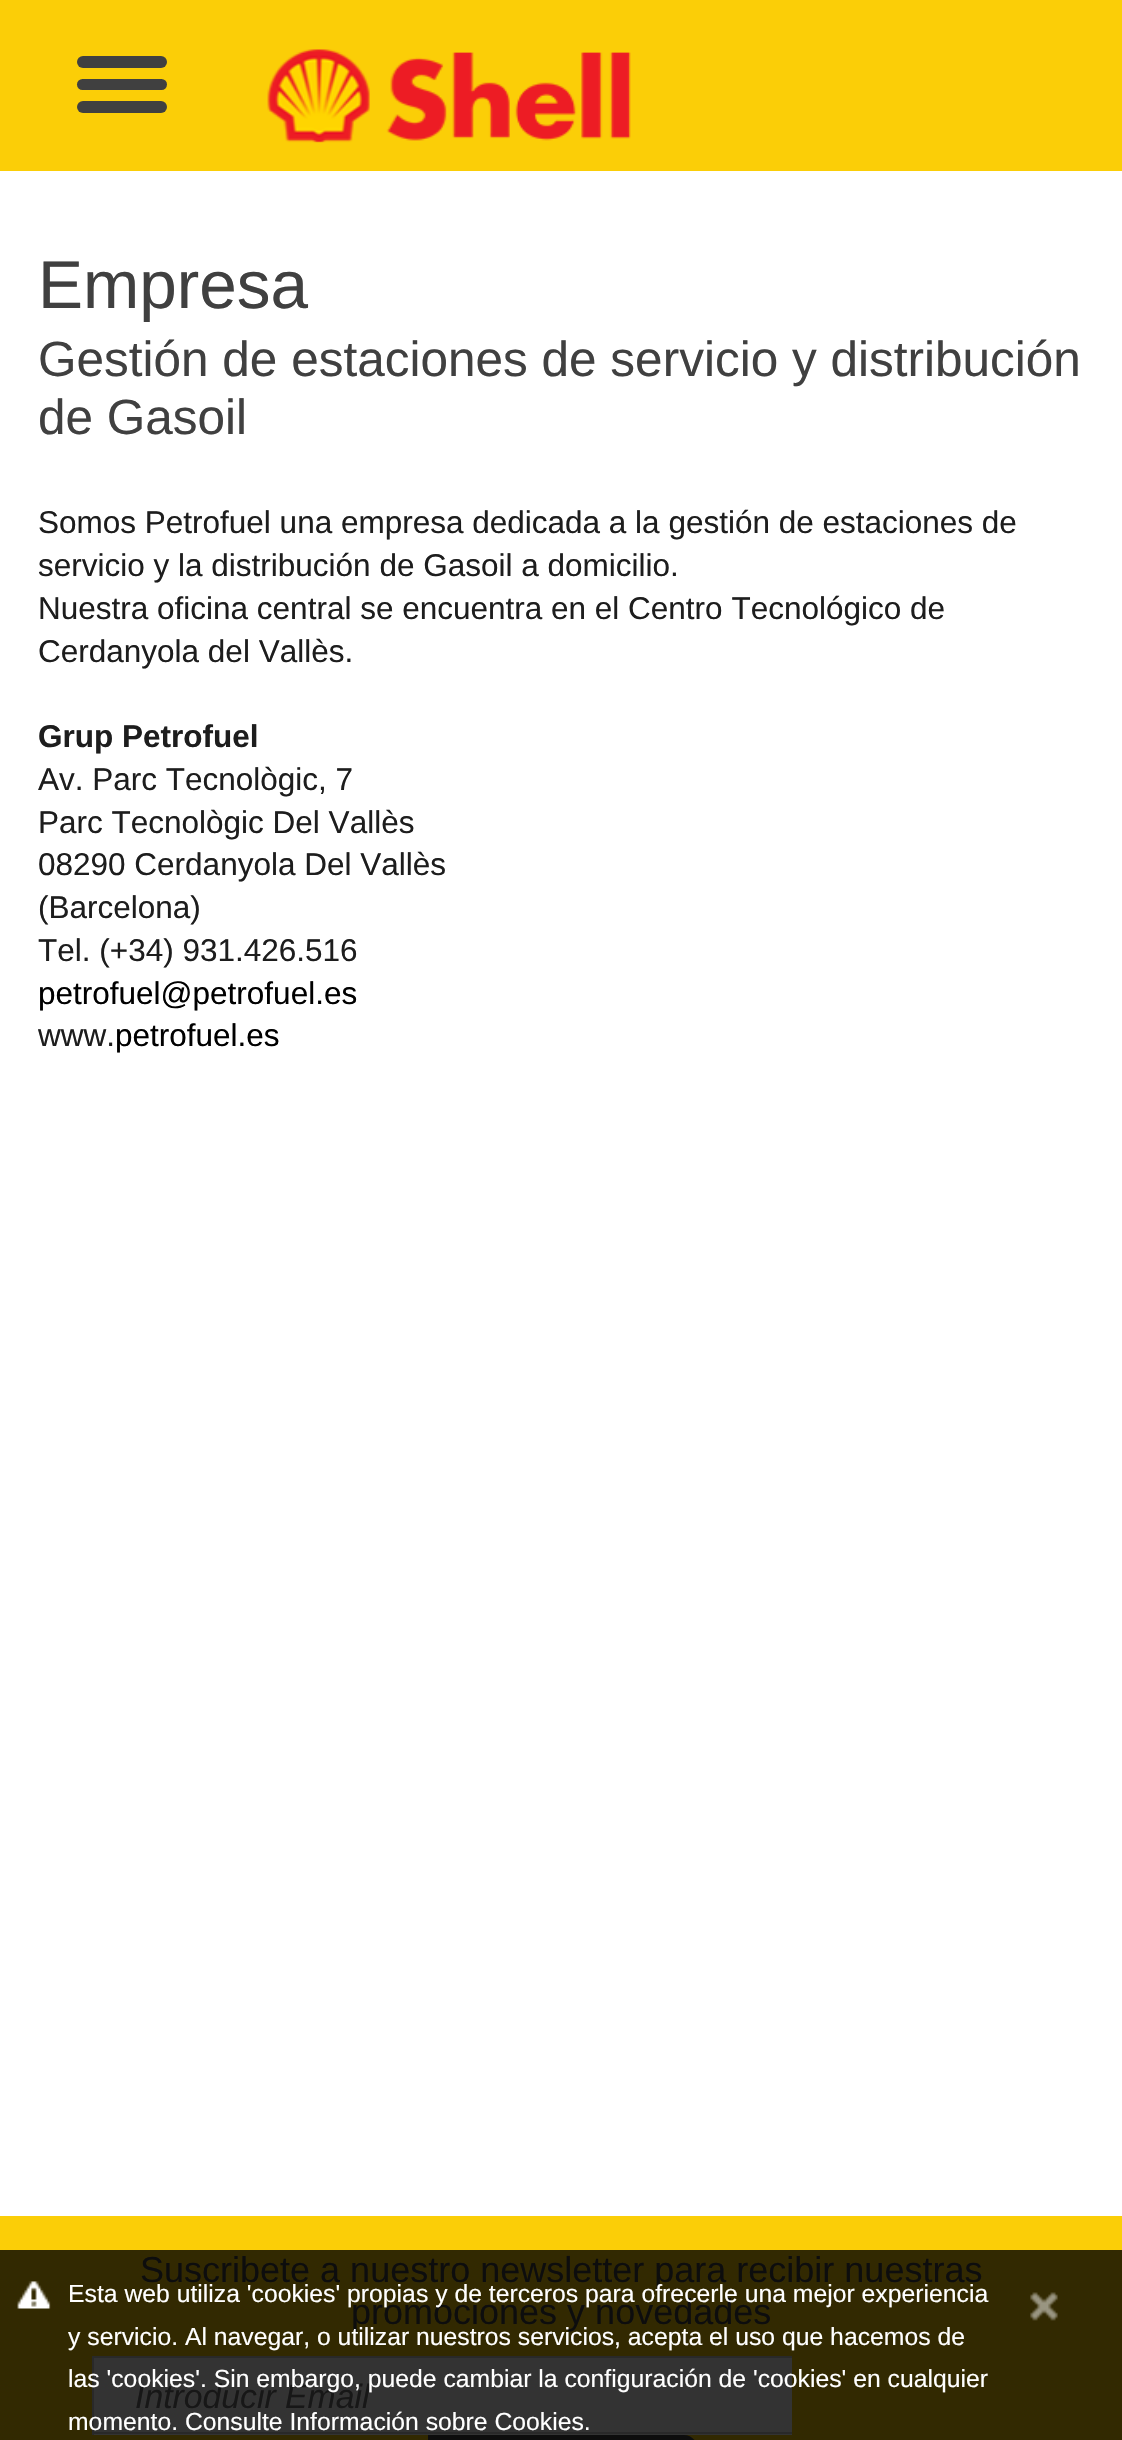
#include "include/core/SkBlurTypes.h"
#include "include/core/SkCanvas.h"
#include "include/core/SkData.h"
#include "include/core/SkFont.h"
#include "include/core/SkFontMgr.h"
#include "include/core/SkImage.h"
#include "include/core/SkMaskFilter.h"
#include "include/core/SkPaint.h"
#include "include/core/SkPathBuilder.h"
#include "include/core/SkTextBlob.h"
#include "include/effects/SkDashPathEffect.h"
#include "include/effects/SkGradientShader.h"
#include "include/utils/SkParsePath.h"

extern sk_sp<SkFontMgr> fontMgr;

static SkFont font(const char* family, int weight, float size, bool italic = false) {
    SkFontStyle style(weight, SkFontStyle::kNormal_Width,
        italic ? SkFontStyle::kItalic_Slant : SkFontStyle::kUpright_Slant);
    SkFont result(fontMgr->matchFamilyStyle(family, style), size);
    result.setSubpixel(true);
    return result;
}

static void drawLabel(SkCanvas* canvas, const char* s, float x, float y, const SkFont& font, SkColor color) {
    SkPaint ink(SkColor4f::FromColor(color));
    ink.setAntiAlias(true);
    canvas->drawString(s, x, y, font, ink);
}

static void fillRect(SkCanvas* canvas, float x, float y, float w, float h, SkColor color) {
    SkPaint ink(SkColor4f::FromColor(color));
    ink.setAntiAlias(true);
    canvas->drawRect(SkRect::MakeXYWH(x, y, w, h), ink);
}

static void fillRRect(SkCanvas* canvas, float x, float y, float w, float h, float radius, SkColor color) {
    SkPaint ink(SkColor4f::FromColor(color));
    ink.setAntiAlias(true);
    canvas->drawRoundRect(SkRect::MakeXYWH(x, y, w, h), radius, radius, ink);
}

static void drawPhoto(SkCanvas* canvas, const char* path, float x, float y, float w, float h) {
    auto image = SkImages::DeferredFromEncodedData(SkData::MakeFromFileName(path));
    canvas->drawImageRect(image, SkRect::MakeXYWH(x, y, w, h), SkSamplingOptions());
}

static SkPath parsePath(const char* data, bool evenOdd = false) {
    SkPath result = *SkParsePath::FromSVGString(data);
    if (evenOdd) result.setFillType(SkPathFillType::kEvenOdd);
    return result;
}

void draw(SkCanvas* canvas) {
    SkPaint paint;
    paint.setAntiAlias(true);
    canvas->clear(0xFFFFFFFF);
    fillRect(canvas, 0, 0, 1122, 171, 0xFFFBCE07);
    drawPhoto(canvas, "assets/img1.png", 267, 49, 364, 94);
    fillRRect(canvas, 77, 56, 90, 12, 6, 0xFF404040);
    fillRRect(canvas, 77, 79, 90, 11, 5.5f, 0xFF404040);
    fillRRect(canvas, 77, 101, 90, 12, 6, 0xFF404040);
    SkFont font1 = font("Liberation Sans", 400, 67.5f);
    drawLabel(canvas, "Empresa", 38, 308, font1, 0xFF404040);
    SkFont font2 = font("Liberation Sans", 400, 49.5f);
    drawLabel(canvas, "Gestión de estaciones de servicio y distribución", 38, 376, font2, 0xFF404040);
    drawLabel(canvas, "de Gasoil", 38, 434, font2, 0xFF404040);
    SkFont font3 = font("Liberation Sans", 400, 31.5f);
    drawLabel(canvas, "Somos Petrofuel una empresa dedicada a la gestión de estaciones de", 38, 533, font3, 0xFF1D1D1D);
    drawLabel(canvas, "servicio y la distribución de Gasoil a domicilio.", 38, 576, font3, 0xFF1D1D1D);
    drawLabel(canvas, "Nuestra oficina central se encuentra en el Centro Tecnológico de", 38, 619, font3, 0xFF1D1D1D);
    drawLabel(canvas, "Cerdanyola del Vallès.", 38, 662, font3, 0xFF1D1D1D);
    SkFont font4 = font("Liberation Sans", 700, 31.5f);
    drawLabel(canvas, "Grup Petrofuel", 38, 747, font4, 0xFF1D1D1D);
    drawLabel(canvas, "Av. Parc Tecnològic, 7", 38, 790, font3, 0xFF1D1D1D);
    drawLabel(canvas, "Parc Tecnològic Del Vallès", 38, 833, font3, 0xFF1D1D1D);
    drawLabel(canvas, "08290 Cerdanyola Del Vallès", 38, 875, font3, 0xFF1D1D1D);
    drawLabel(canvas, "(Barcelona)", 38, 918, font3, 0xFF1D1D1D);
    drawLabel(canvas, "Tel. (+34) 931.426.516", 38, 961, font3, 0xFF1D1D1D);
    drawLabel(canvas, "petrofuel@petrofuel.es", 38, 1004, font3, 0xFF000000);
    drawLabel(canvas, "www.", 38, 1046, font3, 0xFF1D1D1D);
    drawLabel(canvas, "petrofuel.es", 115, 1046, font3, 0xFF000000);
    fillRect(canvas, 0, 2216, 1122, 34, 0xFFFBCE07);
    fillRect(canvas, 0, 2250, 1122, 190, 0xFF322901);
    SkFont font5 = font("Liberation Sans", 400, 36);
    drawLabel(canvas, "Suscribete a nuestro newsletter para recibir nuestras", 140, 2282, font5, 0xFF0D0D0D);
    drawLabel(canvas, "promociones y novedades", 351, 2324, font5, 0xFF0D0D0D);
    fillRect(canvas, 94, 2358, 698, 77, 0xFF333333);
    fillRect(canvas, 92, 2356, 700, 2, 0xFF292929);
    fillRect(canvas, 92, 2432, 700, 2, 0xFF292929);
    fillRect(canvas, 92, 2356, 2, 79, 0xFF292929);
    SkFont font6 = font("Liberation Sans", 400, 33.75f, true);
    drawLabel(canvas, "Introducir Email", 135, 2408, font6, 0xFF171717);
    paint.setColor(0xFF0D0D0D);
    canvas->drawPath(parsePath("M428 2435H684C691.5 2435 698 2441.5 698 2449V2440C698 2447.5 691.5 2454 684 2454H428Z"), paint);
    drawPhoto(canvas, "assets/img2.png", 17, 2281, 34, 28);
    SkFont font7 = font("Liberation Sans", 400, 24.75f);
    drawLabel(canvas, "Esta web utiliza 'cookies' propias y de terceros para ofrecerle una mejor experiencia", 68, 2302, font7, 0xFFFFFFFF);
    drawPhoto(canvas, "assets/img3.png", 1030, 2292, 28, 29);
    drawLabel(canvas, "y servicio. Al navegar, o utilizar nuestros servicios, acepta el uso que hacemos de", 68, 2345, font7, 0xFFFFFFFF);
    drawLabel(canvas, "las 'cookies'. Sin embargo, puede cambiar la configuración de 'cookies' en cualquier", 68, 2387, font7, 0xFFFFFFFF);
    drawLabel(canvas, "momento. Consulte Información sobre Cookies.", 68, 2430, font7, 0xFFFFFFFF);
}
